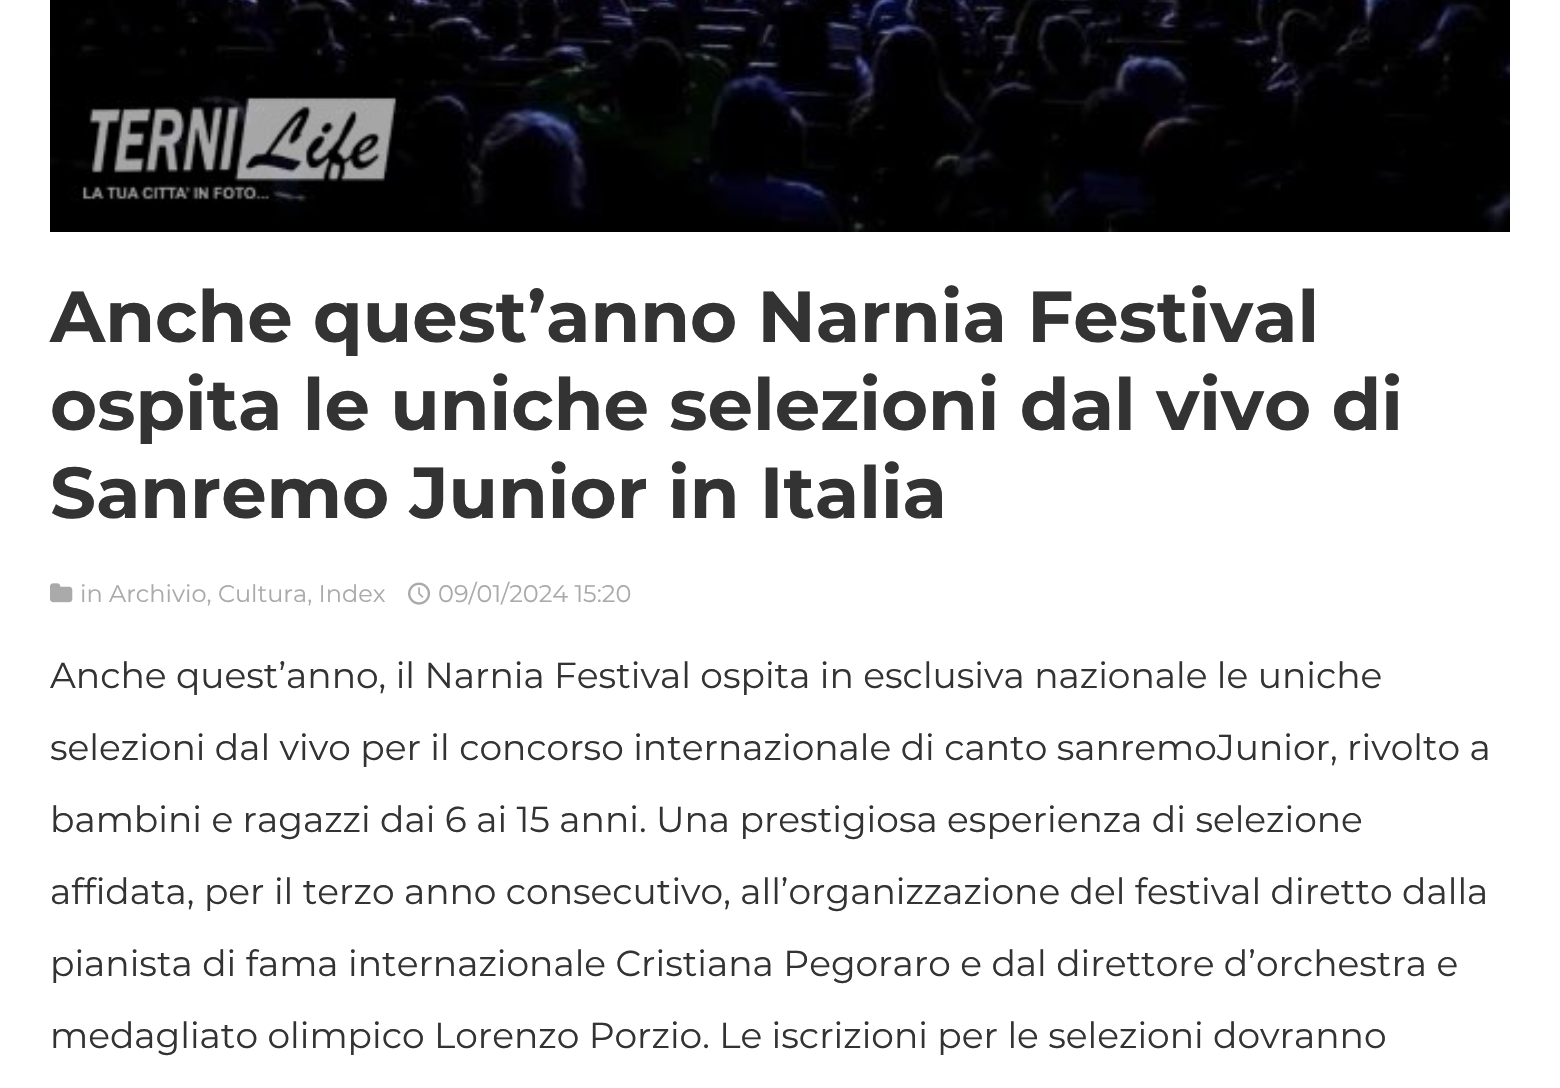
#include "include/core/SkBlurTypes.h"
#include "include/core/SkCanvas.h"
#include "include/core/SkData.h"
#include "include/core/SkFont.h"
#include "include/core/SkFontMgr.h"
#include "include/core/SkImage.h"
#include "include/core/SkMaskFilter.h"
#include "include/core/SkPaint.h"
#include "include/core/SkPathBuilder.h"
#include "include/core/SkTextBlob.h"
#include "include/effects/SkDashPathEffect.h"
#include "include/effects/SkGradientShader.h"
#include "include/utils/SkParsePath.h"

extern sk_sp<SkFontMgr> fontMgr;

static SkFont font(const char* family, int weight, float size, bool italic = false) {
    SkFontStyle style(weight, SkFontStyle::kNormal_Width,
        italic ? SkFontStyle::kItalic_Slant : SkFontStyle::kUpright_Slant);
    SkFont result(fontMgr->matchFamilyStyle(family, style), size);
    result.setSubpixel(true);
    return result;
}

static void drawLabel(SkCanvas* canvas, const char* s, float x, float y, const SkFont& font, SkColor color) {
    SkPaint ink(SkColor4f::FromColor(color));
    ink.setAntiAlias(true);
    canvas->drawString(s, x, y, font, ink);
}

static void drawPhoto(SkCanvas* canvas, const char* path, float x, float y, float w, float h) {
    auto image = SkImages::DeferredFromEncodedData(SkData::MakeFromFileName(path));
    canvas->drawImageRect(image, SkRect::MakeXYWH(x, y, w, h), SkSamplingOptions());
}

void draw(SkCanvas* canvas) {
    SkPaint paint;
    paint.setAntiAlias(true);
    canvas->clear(0xFFFFFFFF);
    drawPhoto(canvas, "assets/img1.png", 50, 0, 1460, 232);
    SkFont font1 = font("Montserrat", 700, 72);
    drawLabel(canvas, "Anche quest’anno Narnia Festival", 50, 342, font1, 0xFF333333);
    drawLabel(canvas, "ospita le uniche selezioni dal vivo di", 50, 430, font1, 0xFF333333);
    drawLabel(canvas, "Sanremo Junior in Italia", 50, 518, font1, 0xFF333333);
    drawPhoto(canvas, "assets/img2.png", 50, 583, 23, 20);
    SkFont font2 = font("Montserrat", 400, 24);
    drawLabel(canvas, "in Archivio, Cultura, Index", 80, 602, font2, 0xFFAAAAAA);
    drawPhoto(canvas, "assets/img3.png", 408, 582, 23, 23);
    drawLabel(canvas, "09/01/2024 15:20", 438, 602, font2, 0xFFAAAAAA);
    SkFont font3 = font("Montserrat", 400, 36);
    drawLabel(canvas, "Anche quest’anno, il Narnia Festival ospita in esclusiva nazionale le uniche", 50, 688, font3, 0xFF333333);
    drawLabel(canvas, "selezioni dal vivo per il concorso internazionale di canto sanremoJunior, rivolto a", 50, 760, font3, 0xFF333333);
    drawLabel(canvas, "bambini e ragazzi dai 6 ai 15 anni. Una prestigiosa esperienza di selezione", 50, 832, font3, 0xFF333333);
    drawLabel(canvas, "affidata, per il terzo anno consecutivo, all’organizzazione del festival diretto dalla", 50, 904, font3, 0xFF333333);
    drawLabel(canvas, "pianista di fama internazionale Cristiana Pegoraro e dal direttore d’orchestra e", 50, 976, font3, 0xFF333333);
    drawLabel(canvas, "medagliato olimpico Lorenzo Porzio. Le iscrizioni per le selezioni dovranno", 50, 1048, font3, 0xFF333333);
}
